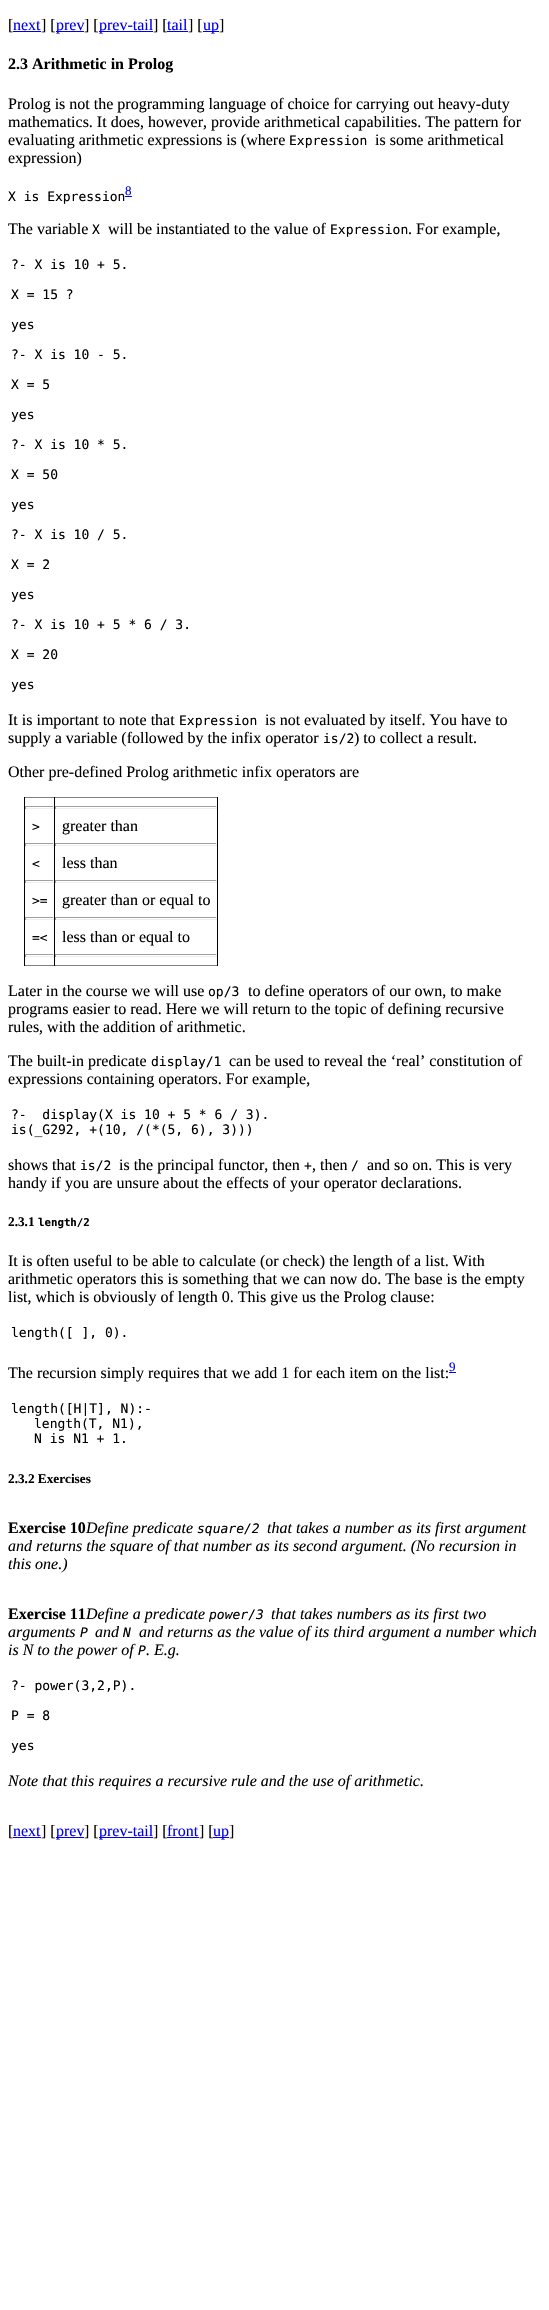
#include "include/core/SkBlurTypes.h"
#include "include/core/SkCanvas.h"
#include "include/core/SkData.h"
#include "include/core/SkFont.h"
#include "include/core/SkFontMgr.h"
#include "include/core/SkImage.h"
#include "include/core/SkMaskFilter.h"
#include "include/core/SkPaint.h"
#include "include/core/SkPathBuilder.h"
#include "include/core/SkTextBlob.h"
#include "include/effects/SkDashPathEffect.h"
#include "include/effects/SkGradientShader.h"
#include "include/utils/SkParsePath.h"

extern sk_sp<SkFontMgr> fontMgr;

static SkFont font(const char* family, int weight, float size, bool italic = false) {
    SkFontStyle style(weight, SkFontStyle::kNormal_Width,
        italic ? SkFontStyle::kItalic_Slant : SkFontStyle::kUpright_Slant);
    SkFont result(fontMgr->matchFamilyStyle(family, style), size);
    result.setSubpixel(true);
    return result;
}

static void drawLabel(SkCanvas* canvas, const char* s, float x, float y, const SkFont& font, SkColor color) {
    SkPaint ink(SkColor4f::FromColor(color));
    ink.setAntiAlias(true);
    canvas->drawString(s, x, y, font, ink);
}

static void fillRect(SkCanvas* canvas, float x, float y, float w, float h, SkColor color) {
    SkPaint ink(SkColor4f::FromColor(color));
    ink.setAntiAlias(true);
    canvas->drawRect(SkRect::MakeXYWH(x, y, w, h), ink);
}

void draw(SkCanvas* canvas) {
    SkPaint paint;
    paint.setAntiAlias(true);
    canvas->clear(0xFFFFFFFF);
    SkFont font1 = font("Liberation Serif", 400, 16);
    drawLabel(canvas, "[", 8, 30, font1, 0xFF000000);
    drawLabel(canvas, "next", 13, 30, font1, 0xFF0000EE);
    fillRect(canvas, 13, 31, 28, 1, 0xFF0000EE);
    drawLabel(canvas, "] [", 41, 30, font1, 0xFF000000);
    fillRect(canvas, 56, 31, 28, 1, 0xFF0000EE);
    drawLabel(canvas, "prev", 56, 30, font1, 0xFF0000EE);
    drawLabel(canvas, "] [", 84, 30, font1, 0xFF000000);
    fillRect(canvas, 99, 31, 54, 1, 0xFF0000EE);
    drawLabel(canvas, "prev-tail", 99, 30, font1, 0xFF0000EE);
    drawLabel(canvas, "] [", 153, 30, font1, 0xFF000000);
    drawLabel(canvas, "tail", 167, 30, font1, 0xFF0000EE);
    fillRect(canvas, 167, 31, 21, 1, 0xFF0000EE);
    drawLabel(canvas, "] [", 188, 30, font1, 0xFF000000);
    fillRect(canvas, 203, 31, 16, 1, 0xFF0000EE);
    drawLabel(canvas, "up", 203, 30, font1, 0xFF0000EE);
    drawLabel(canvas, "]", 219, 30, font1, 0xFF000000);
    SkFont font2 = font("Liberation Serif", 700, 16);
    drawLabel(canvas, "2.3 Arithmetic in Prolog", 8, 69, font2, 0xFF000000);
    drawLabel(canvas, "Prolog is not the programming language of choice for carrying out heavy-duty", 8, 109, font1, 0xFF000000);
    drawLabel(canvas, "mathematics. It does, however, provide arithmetical capabilities. The pattern for", 8, 127, font1, 0xFF000000);
    drawLabel(canvas, "evaluating arithmetic expressions is (where", 8, 145, font1, 0xFF000000);
    SkFont font3 = font("DejaVu Sans Mono", 400, 13);
    drawLabel(canvas, "Expression", 289, 145, font3, 0xFF000000);
    drawLabel(canvas, "is some arithmetical", 375, 145, font1, 0xFF000000);
    drawLabel(canvas, "expression)", 8, 163, font1, 0xFF000000);
    drawLabel(canvas, "X is Expression", 8, 201, font3, 0xFF000000);
    SkFont font4 = font("Liberation Serif", 400, 13);
    drawLabel(canvas, "8", 125, 195, font4, 0xFF0000EE);
    fillRect(canvas, 125, 196, 7, 1, 0xFF0000EE);
    drawLabel(canvas, "The variable", 8, 234, font1, 0xFF000000);
    drawLabel(canvas, "X", 92, 234, font3, 0xFF000000);
    drawLabel(canvas, "will be instantiated to the value of", 108, 234, font1, 0xFF000000);
    drawLabel(canvas, "Expression", 330, 234, font3, 0xFF000000);
    drawLabel(canvas, ". For example,", 408, 234, font1, 0xFF000000);
    drawLabel(canvas, "?- X is 10 + 5.", 11, 269, font3, 0xFF000000);
    drawLabel(canvas, "X = 15 ?", 11, 299, font3, 0xFF000000);
    drawLabel(canvas, "yes", 11, 329, font3, 0xFF000000);
    drawLabel(canvas, "?- X is 10 - 5.", 11, 359, font3, 0xFF000000);
    drawLabel(canvas, "X = 5", 11, 389, font3, 0xFF000000);
    drawLabel(canvas, "yes", 11, 419, font3, 0xFF000000);
    drawLabel(canvas, "?- X is 10 * 5.", 11, 449, font3, 0xFF000000);
    drawLabel(canvas, "X = 50", 11, 479, font3, 0xFF000000);
    drawLabel(canvas, "yes", 11, 509, font3, 0xFF000000);
    drawLabel(canvas, "?- X is 10 / 5.", 11, 539, font3, 0xFF000000);
    drawLabel(canvas, "X = 2", 11, 569, font3, 0xFF000000);
    drawLabel(canvas, "yes", 11, 599, font3, 0xFF000000);
    drawLabel(canvas, "?- X is 10 + 5 * 6 / 3.", 11, 629, font3, 0xFF000000);
    drawLabel(canvas, "X = 20", 11, 659, font3, 0xFF000000);
    drawLabel(canvas, "yes", 11, 689, font3, 0xFF000000);
    drawLabel(canvas, "It is important to note that", 8, 725, font1, 0xFF000000);
    drawLabel(canvas, "Expression", 179, 725, font3, 0xFF000000);
    drawLabel(canvas, "is not evaluated by itself. You have to", 265, 725, font1, 0xFF000000);
    drawLabel(canvas, "supply a variable (followed by the infix operator", 8, 743, font1, 0xFF000000);
    drawLabel(canvas, "is/2", 323, 743, font3, 0xFF000000);
    drawLabel(canvas, ") to collect a result.", 354, 743, font1, 0xFF000000);
    drawLabel(canvas, "Other pre-defined Prolog arithmetic infix operators are", 8, 777, font1, 0xFF000000);
    fillRect(canvas, 24, 797, 194, 1, 0xFF808080);
    fillRect(canvas, 24, 965, 194, 1, 0xFF808080);
    fillRect(canvas, 24, 797, 1, 169, 0xFF000000);
    fillRect(canvas, 217, 797, 1, 169, 0xFF000000);
    fillRect(canvas, 54, 797, 1, 169, 0xFF000000);
    fillRect(canvas, 25, 806, 29, 1, 0xFF9F9F9F);
    fillRect(canvas, 53, 806, 1, 3, 0xFFEEEEEE);
    fillRect(canvas, 25, 808, 29, 1, 0xFFEEEEEE);
    fillRect(canvas, 25, 806, 1, 3, 0xFF9F9F9F);
    fillRect(canvas, 55, 806, 162, 1, 0xFF9F9F9F);
    fillRect(canvas, 216, 806, 1, 3, 0xFFEEEEEE);
    fillRect(canvas, 55, 808, 162, 1, 0xFFEEEEEE);
    fillRect(canvas, 55, 806, 1, 3, 0xFF9F9F9F);
    drawLabel(canvas, ">", 32, 831, font3, 0xFF000000);
    drawLabel(canvas, "greater than", 62, 831, font1, 0xFF000000);
    fillRect(canvas, 25, 843, 29, 1, 0xFF9F9F9F);
    fillRect(canvas, 53, 843, 1, 3, 0xFFEEEEEE);
    fillRect(canvas, 25, 845, 29, 1, 0xFFEEEEEE);
    fillRect(canvas, 25, 843, 1, 3, 0xFF9F9F9F);
    fillRect(canvas, 55, 843, 162, 1, 0xFF9F9F9F);
    fillRect(canvas, 216, 843, 1, 3, 0xFFEEEEEE);
    fillRect(canvas, 55, 845, 162, 1, 0xFFEEEEEE);
    fillRect(canvas, 55, 843, 1, 3, 0xFF9F9F9F);
    drawLabel(canvas, "<", 32, 868, font3, 0xFF000000);
    drawLabel(canvas, "less than", 62, 868, font1, 0xFF000000);
    fillRect(canvas, 25, 880, 29, 1, 0xFF9F9F9F);
    fillRect(canvas, 53, 880, 1, 3, 0xFFEEEEEE);
    fillRect(canvas, 25, 882, 29, 1, 0xFFEEEEEE);
    fillRect(canvas, 25, 880, 1, 3, 0xFF9F9F9F);
    fillRect(canvas, 55, 880, 162, 1, 0xFF9F9F9F);
    fillRect(canvas, 216, 880, 1, 3, 0xFFEEEEEE);
    fillRect(canvas, 55, 882, 162, 1, 0xFFEEEEEE);
    fillRect(canvas, 55, 880, 1, 3, 0xFF9F9F9F);
    drawLabel(canvas, ">=", 32, 905, font3, 0xFF000000);
    drawLabel(canvas, "greater than or equal to", 62, 905, font1, 0xFF000000);
    fillRect(canvas, 25, 917, 29, 1, 0xFF9F9F9F);
    fillRect(canvas, 53, 917, 1, 3, 0xFFEEEEEE);
    fillRect(canvas, 25, 919, 29, 1, 0xFFEEEEEE);
    fillRect(canvas, 25, 917, 1, 3, 0xFF9F9F9F);
    fillRect(canvas, 55, 917, 162, 1, 0xFF9F9F9F);
    fillRect(canvas, 216, 917, 1, 3, 0xFFEEEEEE);
    fillRect(canvas, 55, 919, 162, 1, 0xFFEEEEEE);
    fillRect(canvas, 55, 917, 1, 3, 0xFF9F9F9F);
    drawLabel(canvas, "=<", 32, 942, font3, 0xFF000000);
    drawLabel(canvas, "less than or equal to", 62, 942, font1, 0xFF000000);
    fillRect(canvas, 25, 954, 29, 1, 0xFF9F9F9F);
    fillRect(canvas, 53, 954, 1, 3, 0xFFEEEEEE);
    fillRect(canvas, 25, 956, 29, 1, 0xFFEEEEEE);
    fillRect(canvas, 25, 954, 1, 3, 0xFF9F9F9F);
    fillRect(canvas, 55, 954, 162, 1, 0xFF9F9F9F);
    fillRect(canvas, 216, 954, 1, 3, 0xFFEEEEEE);
    fillRect(canvas, 55, 956, 162, 1, 0xFFEEEEEE);
    fillRect(canvas, 55, 954, 1, 3, 0xFF9F9F9F);
    drawLabel(canvas, "Later in the course we will use", 8, 996, font1, 0xFF000000);
    drawLabel(canvas, "op/3", 208, 996, font3, 0xFF000000);
    drawLabel(canvas, "to define operators of our own, to make", 248, 996, font1, 0xFF000000);
    drawLabel(canvas, "programs easier to read. Here we will return to the topic of defining recursive", 8, 1014, font1, 0xFF000000);
    drawLabel(canvas, "rules, with the addition of arithmetic.", 8, 1032, font1, 0xFF000000);
    drawLabel(canvas, "The built-in predicate", 8, 1066, font1, 0xFF000000);
    drawLabel(canvas, "display/1", 151, 1066, font3, 0xFF000000);
    drawLabel(canvas, "can be used to reveal the ‘real’ constitution of", 229, 1066, font1, 0xFF000000);
    drawLabel(canvas, "expressions containing operators. For example,", 8, 1084, font1, 0xFF000000);
    drawLabel(canvas, "?-  display(X is 10 + 5 * 6 / 3).", 11, 1119, font3, 0xFF000000);
    drawLabel(canvas, "is(_G292, +(10, /(*(5, 6), 3)))", 11, 1134, font3, 0xFF000000);
    drawLabel(canvas, "shows that", 8, 1170, font1, 0xFF000000);
    drawLabel(canvas, "is/2", 80, 1170, font3, 0xFF000000);
    drawLabel(canvas, "is the principal functor, then", 119, 1170, font1, 0xFF000000);
    drawLabel(canvas, "+", 304, 1170, font3, 0xFF000000);
    drawLabel(canvas, ", then", 312, 1170, font1, 0xFF000000);
    drawLabel(canvas, "/", 351, 1170, font3, 0xFF000000);
    drawLabel(canvas, "and so on. This is very", 367, 1170, font1, 0xFF000000);
    drawLabel(canvas, "handy if you are unsure about the effects of your operator declarations.", 8, 1188, font1, 0xFF000000);
    SkFont font5 = font("Liberation Serif", 700, 13.25f);
    drawLabel(canvas, "2.3.1", 8, 1226, font5, 0xFF000000);
    SkFont font6 = font("DejaVu Sans Mono", 700, 10.75f);
    drawLabel(canvas, "length/2", 38, 1226, font6, 0xFF000000);
    drawLabel(canvas, "It is often useful to be able to calculate (or check) the length of a list. With", 8, 1266, font1, 0xFF000000);
    drawLabel(canvas, "arithmetic operators this is something that we can now do. The base is the empty", 8, 1284, font1, 0xFF000000);
    drawLabel(canvas, "list, which is obviously of length 0. This give us the Prolog clause:", 8, 1302, font1, 0xFF000000);
    drawLabel(canvas, "length([ ], 0).", 11, 1337, font3, 0xFF000000);
    drawLabel(canvas, "The recursion simply requires that we add 1 for each item on the list:", 8, 1378, font1, 0xFF000000);
    drawLabel(canvas, "9", 449, 1371, font4, 0xFF0000EE);
    fillRect(canvas, 449, 1372, 7, 1, 0xFF0000EE);
    drawLabel(canvas, "length([H|T], N):-", 11, 1413, font3, 0xFF000000);
    drawLabel(canvas, "length(T, N1),", 34, 1428, font3, 0xFF000000);
    drawLabel(canvas, "N is N1 + 1.", 34, 1443, font3, 0xFF000000);
    drawLabel(canvas, "2.3.2 Exercises", 8, 1483, font5, 0xFF000000);
    drawLabel(canvas, "Exercise 10", 8, 1533, font2, 0xFF000000);
    SkFont font7 = font("Liberation Serif", 400, 16, true);
    drawLabel(canvas, "Define predicate", 86, 1533, font7, 0xFF000000);
    SkFont font8 = font("DejaVu Sans Mono", 400, 13, true);
    drawLabel(canvas, "square/2", 197, 1533, font8, 0xFF000000);
    drawLabel(canvas, "that takes a number as its first argument", 267, 1533, font7, 0xFF000000);
    drawLabel(canvas, "and returns the square of that number as its second argument. (No recursion in", 8, 1551, font7, 0xFF000000);
    drawLabel(canvas, "this one.)", 8, 1569, font7, 0xFF000000);
    drawLabel(canvas, "Exercise 11", 8, 1619, font2, 0xFF000000);
    drawLabel(canvas, "Define a predicate", 86, 1619, font7, 0xFF000000);
    drawLabel(canvas, "power/3", 209, 1619, font8, 0xFF000000);
    drawLabel(canvas, "that takes numbers as its first two", 271, 1619, font7, 0xFF000000);
    drawLabel(canvas, "arguments", 8, 1637, font7, 0xFF000000);
    drawLabel(canvas, "P", 80, 1637, font8, 0xFF000000);
    drawLabel(canvas, "and", 95, 1637, font7, 0xFF000000);
    drawLabel(canvas, "N", 123, 1637, font8, 0xFF000000);
    drawLabel(canvas, "and returns as the value of its third argument a number which", 139, 1637, font7, 0xFF000000);
    drawLabel(canvas, "is N to the power of", 8, 1655, font7, 0xFF000000);
    drawLabel(canvas, "P", 138, 1655, font8, 0xFF000000);
    drawLabel(canvas, ". E.g.", 146, 1655, font7, 0xFF000000);
    drawLabel(canvas, "?- power(3,2,P).", 11, 1690, font3, 0xFF000000);
    drawLabel(canvas, "P = 8", 11, 1720, font3, 0xFF000000);
    drawLabel(canvas, "yes", 11, 1750, font3, 0xFF000000);
    drawLabel(canvas, "Note that this requires a recursive rule and the use of arithmetic.", 8, 1786, font7, 0xFF000000);
    drawLabel(canvas, "[", 8, 1836, font1, 0xFF000000);
    drawLabel(canvas, "next", 13, 1836, font1, 0xFF0000EE);
    fillRect(canvas, 13, 1837, 28, 1, 0xFF0000EE);
    drawLabel(canvas, "] [", 41, 1836, font1, 0xFF000000);
    fillRect(canvas, 56, 1837, 28, 1, 0xFF0000EE);
    drawLabel(canvas, "prev", 56, 1836, font1, 0xFF0000EE);
    drawLabel(canvas, "] [", 84, 1836, font1, 0xFF000000);
    fillRect(canvas, 99, 1837, 54, 1, 0xFF0000EE);
    drawLabel(canvas, "prev-tail", 99, 1836, font1, 0xFF0000EE);
    drawLabel(canvas, "] [", 153, 1836, font1, 0xFF000000);
    drawLabel(canvas, "front", 167, 1836, font1, 0xFF0000EE);
    fillRect(canvas, 167, 1837, 32, 1, 0xFF0000EE);
    drawLabel(canvas, "] [", 199, 1836, font1, 0xFF000000);
    fillRect(canvas, 213, 1837, 16, 1, 0xFF0000EE);
    drawLabel(canvas, "up", 213, 1836, font1, 0xFF0000EE);
    drawLabel(canvas, "]", 229, 1836, font1, 0xFF000000);
}
